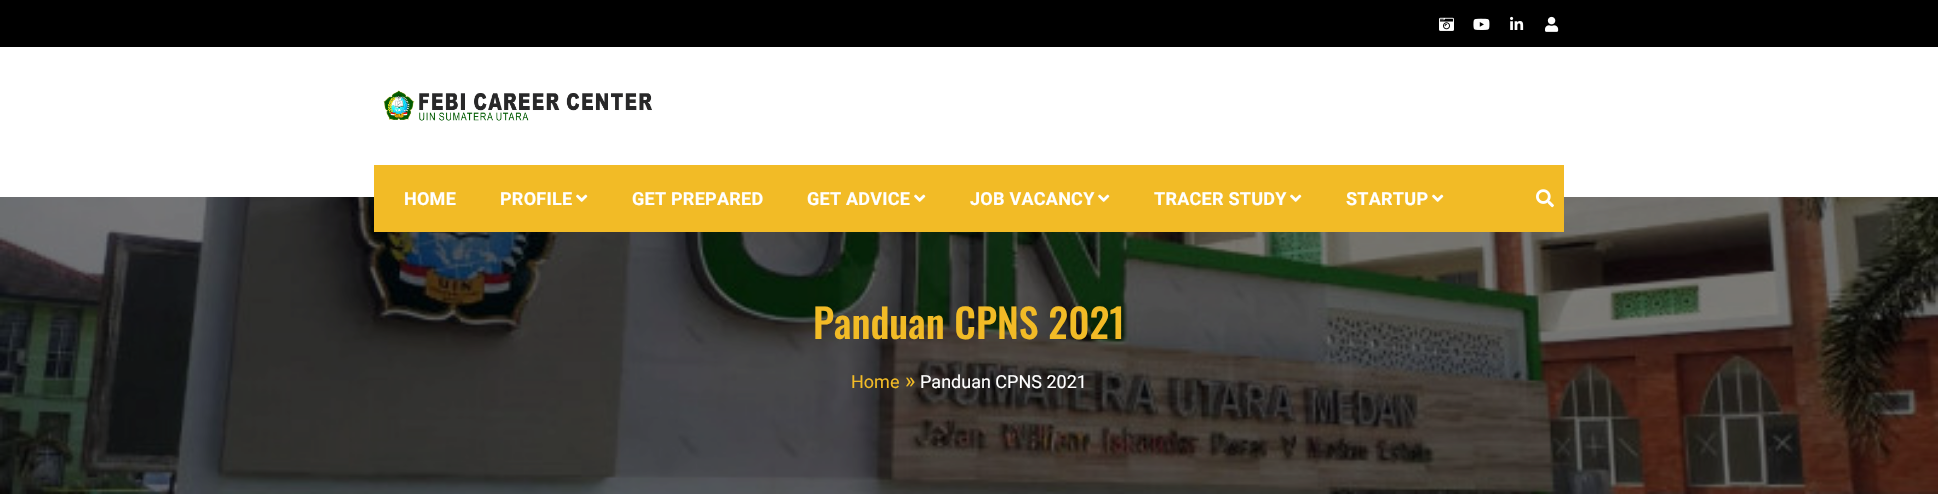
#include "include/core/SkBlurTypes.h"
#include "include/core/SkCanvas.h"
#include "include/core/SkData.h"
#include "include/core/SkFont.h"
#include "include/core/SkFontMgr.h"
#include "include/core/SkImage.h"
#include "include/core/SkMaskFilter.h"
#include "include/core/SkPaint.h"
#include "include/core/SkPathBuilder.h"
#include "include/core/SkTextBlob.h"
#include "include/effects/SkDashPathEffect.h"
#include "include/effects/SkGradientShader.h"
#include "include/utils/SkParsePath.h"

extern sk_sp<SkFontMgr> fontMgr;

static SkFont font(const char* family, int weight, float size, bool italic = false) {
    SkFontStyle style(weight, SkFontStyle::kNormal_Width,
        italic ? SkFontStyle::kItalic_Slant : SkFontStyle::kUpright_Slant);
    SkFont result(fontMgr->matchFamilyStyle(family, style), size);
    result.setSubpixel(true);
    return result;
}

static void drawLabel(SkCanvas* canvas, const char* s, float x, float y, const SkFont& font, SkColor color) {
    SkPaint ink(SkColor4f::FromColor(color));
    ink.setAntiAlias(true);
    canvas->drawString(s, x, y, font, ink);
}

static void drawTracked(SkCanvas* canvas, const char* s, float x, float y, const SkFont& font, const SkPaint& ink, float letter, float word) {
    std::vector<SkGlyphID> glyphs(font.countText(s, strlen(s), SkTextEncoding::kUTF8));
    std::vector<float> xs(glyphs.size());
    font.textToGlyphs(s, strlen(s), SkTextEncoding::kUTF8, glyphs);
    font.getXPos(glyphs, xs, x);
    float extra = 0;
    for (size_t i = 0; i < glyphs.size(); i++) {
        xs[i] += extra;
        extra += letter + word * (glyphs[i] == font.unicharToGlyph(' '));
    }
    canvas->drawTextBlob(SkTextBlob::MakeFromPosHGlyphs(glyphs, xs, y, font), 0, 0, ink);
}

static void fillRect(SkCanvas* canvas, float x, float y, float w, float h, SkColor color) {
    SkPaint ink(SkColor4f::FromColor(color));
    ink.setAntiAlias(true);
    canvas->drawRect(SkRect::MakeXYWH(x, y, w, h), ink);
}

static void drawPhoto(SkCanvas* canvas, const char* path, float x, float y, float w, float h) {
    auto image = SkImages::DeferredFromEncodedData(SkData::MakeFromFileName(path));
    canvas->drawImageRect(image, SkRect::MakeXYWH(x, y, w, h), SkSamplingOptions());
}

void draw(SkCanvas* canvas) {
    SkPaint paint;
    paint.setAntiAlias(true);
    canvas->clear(0xFFFFFFFF);
    fillRect(canvas, 0, 0, 1938, 47, 0xFF000000);
    drawPhoto(canvas, "assets/img1.png", 1439, 17, 15, 14);
    drawPhoto(canvas, "assets/img2.png", 1473, 18, 17, 12);
    drawPhoto(canvas, "assets/img3.png", 1510, 16, 14, 14);
    drawPhoto(canvas, "assets/img4.png", 1545, 16, 14, 16);
    drawPhoto(canvas, "assets/img5.png", 383, 90, 269, 31);
    drawPhoto(canvas, "assets/img8.png", 0, 197, 1938, 297);
    fillRect(canvas, 374, 165, 1190, 67, 0xFFF2BB26);
    SkFont font1 = font("Roboto", 700, 18);
    paint.setColor(0xFFFFFFFF);
    drawTracked(canvas, "HOME", 404, 205, font1, paint, 0.25f, 0);
    drawTracked(canvas, "PROFILE", 500, 205, font1, paint, 0.25f, 0);
    drawPhoto(canvas, "assets/img6.png", 576, 194, 12, 8);
    drawTracked(canvas, "GET PREPARED", 632, 205, font1, paint, 0.25f, 0);
    drawTracked(canvas, "GET ADVICE", 807, 205, font1, paint, 0.25f, 0);
    drawPhoto(canvas, "assets/img6.png", 914, 194, 12, 8);
    drawTracked(canvas, "JOB VACANCY", 970, 205, font1, paint, 0.25f, 0);
    drawPhoto(canvas, "assets/img6.png", 1098, 194, 12, 8);
    drawTracked(canvas, "TRACER STUDY", 1154, 205, font1, paint, 0.25f, 0);
    drawPhoto(canvas, "assets/img6.png", 1290, 194, 12, 8);
    drawTracked(canvas, "STARTUP", 1346, 205, font1, paint, 0.25f, 0);
    drawPhoto(canvas, "assets/img6.png", 1432, 194, 12, 8);
    drawPhoto(canvas, "assets/img7.png", 1536, 189, 18, 19);
    SkFont font2 = font("Oswald", 500, 40);
    drawLabel(canvas, "Panduan CPNS 2021", 813, 339, font2, 0xFFF2BB26);
    SkFont font3 = font("Roboto", 400, 18);
    drawLabel(canvas, "Home", 851, 388, font3, 0xFFF2BB26);
    SkFont font4 = font("Roboto", 400, 22);
    drawLabel(canvas, "»", 905, 388, font4, 0xFFF2BB26);
    drawLabel(canvas, "Panduan CPNS 2021", 920, 388, font3, 0xFFFFFFFF);
}
